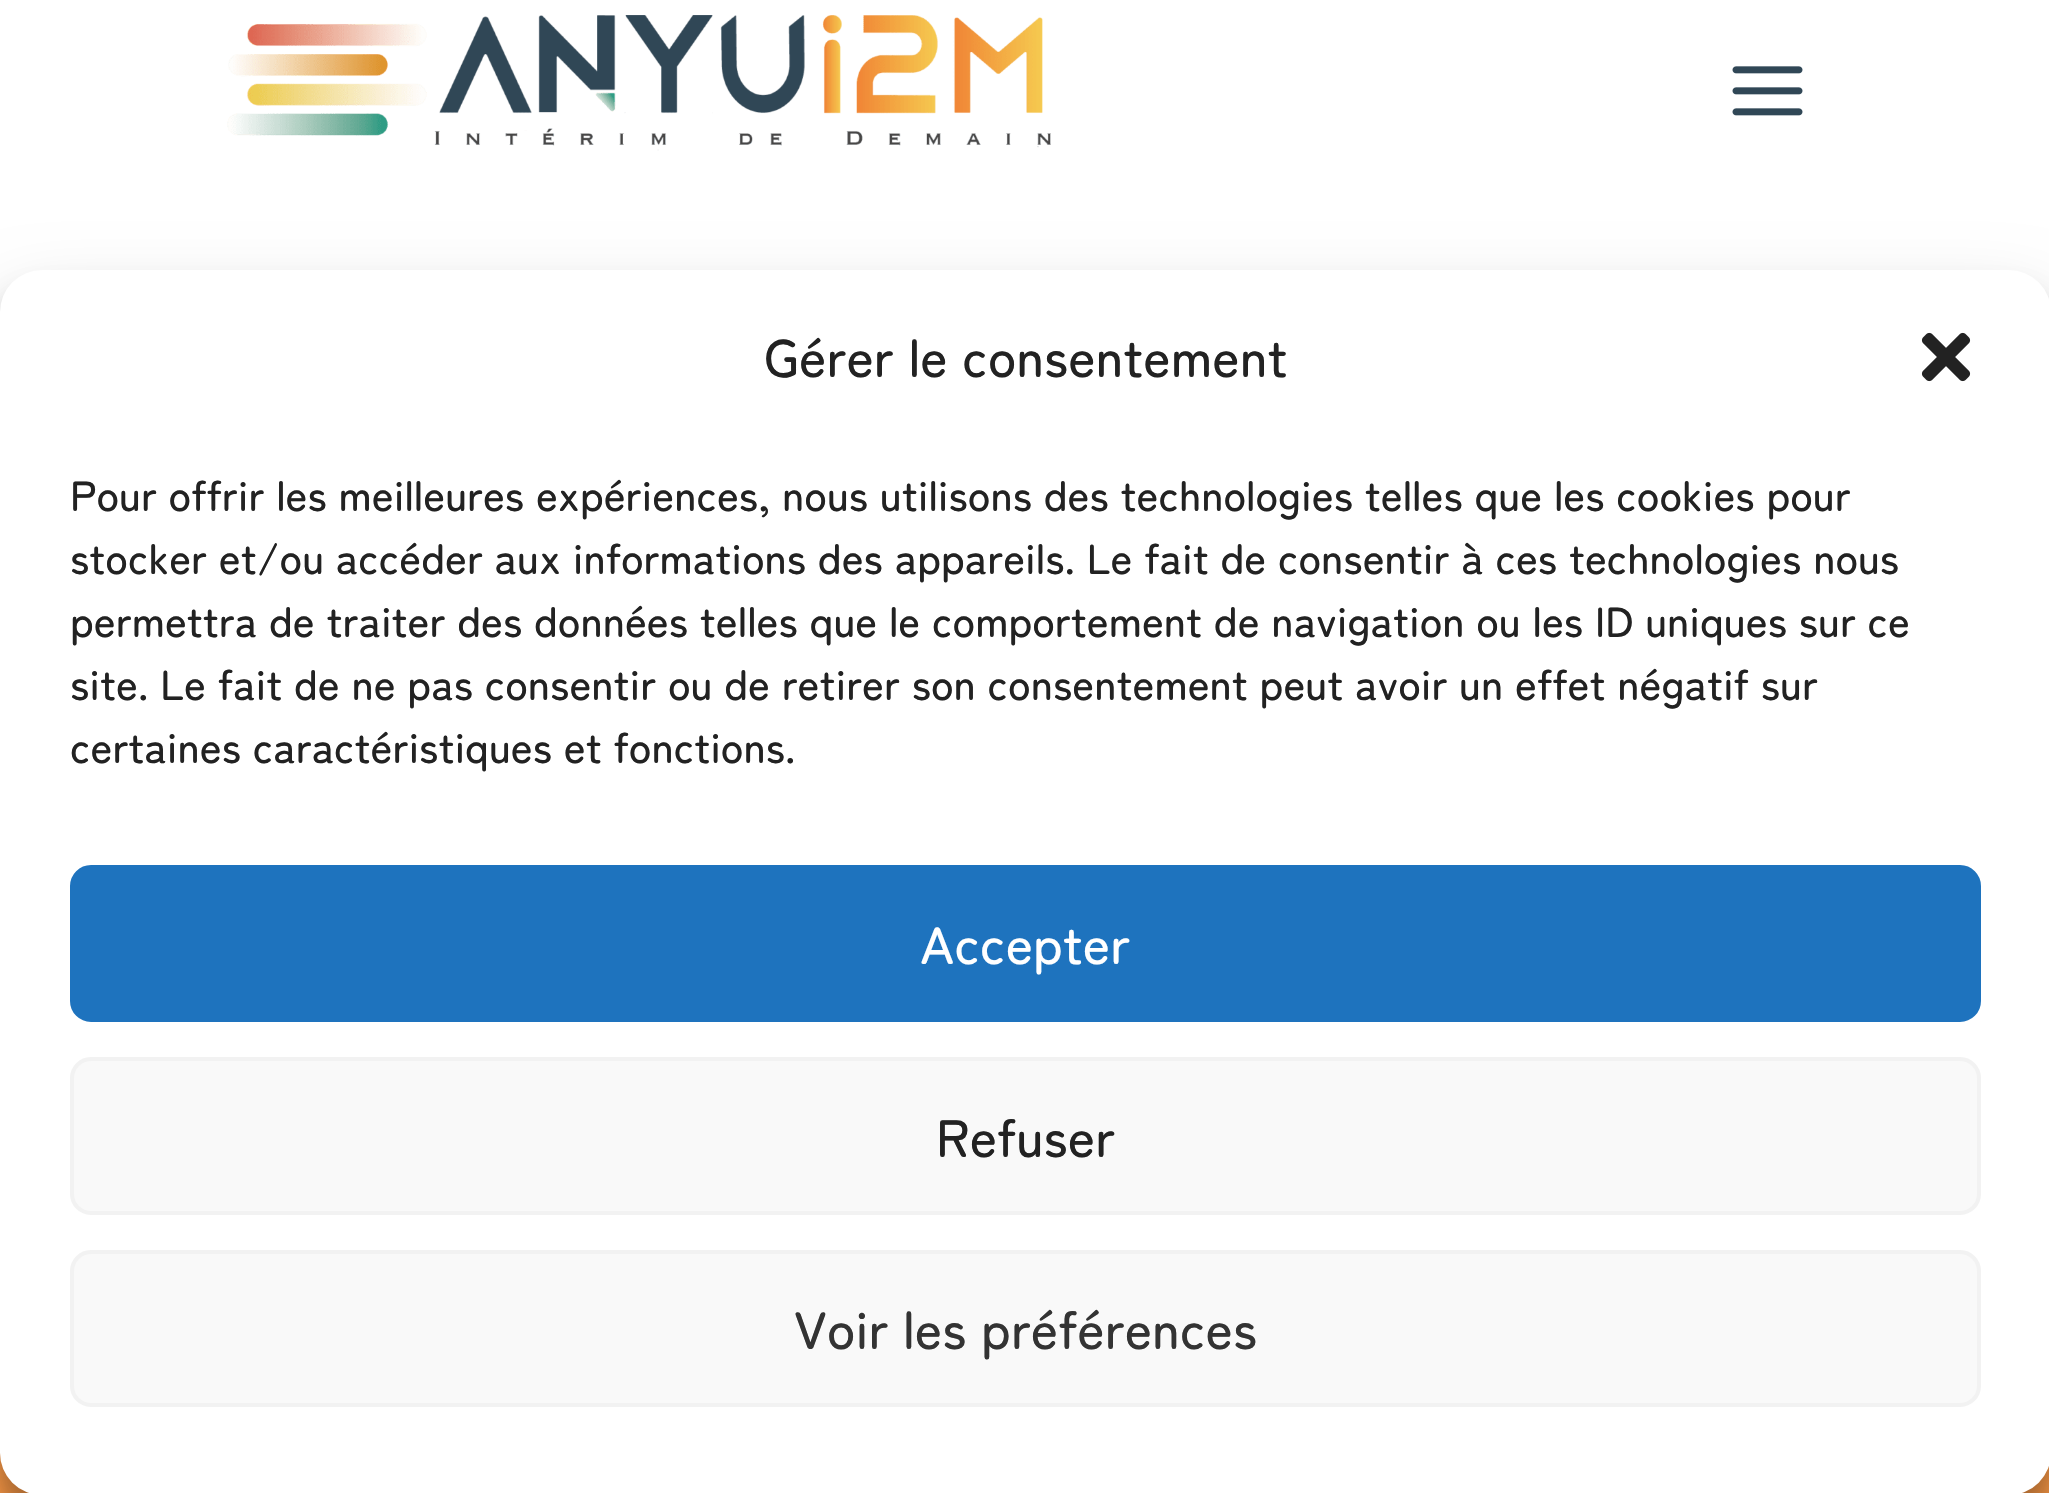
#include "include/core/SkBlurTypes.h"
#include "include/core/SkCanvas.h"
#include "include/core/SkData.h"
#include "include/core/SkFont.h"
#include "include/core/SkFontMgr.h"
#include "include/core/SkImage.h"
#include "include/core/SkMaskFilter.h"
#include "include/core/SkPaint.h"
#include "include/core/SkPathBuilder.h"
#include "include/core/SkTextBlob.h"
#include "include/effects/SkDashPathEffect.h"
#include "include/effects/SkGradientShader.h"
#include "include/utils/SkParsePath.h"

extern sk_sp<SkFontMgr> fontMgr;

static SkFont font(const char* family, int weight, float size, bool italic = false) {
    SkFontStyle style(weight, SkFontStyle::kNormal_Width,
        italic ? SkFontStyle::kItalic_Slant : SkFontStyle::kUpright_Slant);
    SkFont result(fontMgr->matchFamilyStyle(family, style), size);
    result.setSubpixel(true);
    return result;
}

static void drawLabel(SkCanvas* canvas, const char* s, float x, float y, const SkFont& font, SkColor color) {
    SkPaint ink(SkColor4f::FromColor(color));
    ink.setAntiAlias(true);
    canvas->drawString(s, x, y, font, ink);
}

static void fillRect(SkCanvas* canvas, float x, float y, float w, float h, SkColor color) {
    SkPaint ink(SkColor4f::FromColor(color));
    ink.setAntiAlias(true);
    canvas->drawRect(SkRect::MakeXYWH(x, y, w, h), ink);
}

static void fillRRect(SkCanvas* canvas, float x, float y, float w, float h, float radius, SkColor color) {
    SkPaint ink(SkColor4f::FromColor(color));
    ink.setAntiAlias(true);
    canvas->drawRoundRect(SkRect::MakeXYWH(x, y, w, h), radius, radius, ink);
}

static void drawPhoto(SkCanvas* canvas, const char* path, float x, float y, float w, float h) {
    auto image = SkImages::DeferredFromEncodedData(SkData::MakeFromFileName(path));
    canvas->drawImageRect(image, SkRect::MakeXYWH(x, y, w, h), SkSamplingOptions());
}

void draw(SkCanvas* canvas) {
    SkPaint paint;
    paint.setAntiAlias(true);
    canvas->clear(0xFFFFFFFF);
    drawPhoto(canvas, "assets/img1.png", 227, 15, 824, 136);
    drawPhoto(canvas, "assets/img2.png", 1732, 66, 71, 50);
    fillRect(canvas, 0, 1453, 2049, 40, 0xFFFF9C48);
    paint.setColor(0x3B000000);
    paint.setMaskFilter(SkMaskFilter::MakeBlur(kNormal_SkBlurStyle, 10.5f));
    canvas->drawRoundRect(SkRect::MakeXYWH(0, 291, 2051, 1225), 42, 42, paint);
    paint.setMaskFilter(nullptr);
    paint.setColor(0x30000000);
    paint.setMaskFilter(SkMaskFilter::MakeBlur(kNormal_SkBlurStyle, 35));
    canvas->drawRoundRect(SkRect::MakeXYWH(0, 305, 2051, 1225), 42, 42, paint);
    paint.setMaskFilter(nullptr);
    fillRRect(canvas, 0, 270, 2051, 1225, 42, 0xFFFFFFFF);
    SkFont font1 = font("Zen Maru Gothic", 500, 52.5f);
    drawLabel(canvas, "Gérer le consentement", 764, 377, font1, 0xFF222222);
    drawPhoto(canvas, "assets/img3.png", 1921, 332, 50, 50);
    SkFont font2 = font("Zen Maru Gothic", 500, 42);
    drawLabel(canvas, "Pour offrir les meilleures expériences, nous utilisons des technologies telles que les cookies pour", 70, 511, font2, 0xFF222222);
    drawLabel(canvas, "stocker et/ou accéder aux informations des appareils. Le fait de consentir à ces technologies nous", 70, 574, font2, 0xFF222222);
    drawLabel(canvas, "permettra de traiter des données telles que le comportement de navigation ou les ID uniques sur ce", 70, 637, font2, 0xFF222222);
    drawLabel(canvas, "site. Le fait de ne pas consentir ou de retirer son consentement peut avoir un effet négatif sur", 70, 700, font2, 0xFF222222);
    drawLabel(canvas, "certaines caractéristiques et fonctions.", 70, 763, font2, 0xFF222222);
    paint.setColor(0xFF1E73BE);
    canvas->drawRoundRect(SkRect::MakeXYWH(72, 867, 1907, 153), 19, 19, paint);
    paint.setStroke(true);
    paint.setStrokeWidth(4);
    canvas->drawRoundRect(SkRect::MakeXYWH(72, 867, 1907, 153), 19, 19, paint);
    drawLabel(canvas, "Accepter", 920, 964, font1, 0xFFFFFFFF);
    paint.setStroke(false);
    paint.setColor(0xFFF9F9F9);
    canvas->drawRoundRect(SkRect::MakeXYWH(72, 1059, 1907, 154), 19, 19, paint);
    paint.setStroke(true);
    paint.setColor(0xFFF2F2F2);
    canvas->drawRoundRect(SkRect::MakeXYWH(72, 1059, 1907, 154), 19, 19, paint);
    drawLabel(canvas, "Refuser", 936, 1157, font1, 0xFF222222);
    paint.setStroke(false);
    paint.setColor(0xFFF9F9F9);
    canvas->drawRoundRect(SkRect::MakeXYWH(72, 1252, 1907, 153), 19, 19, paint);
    paint.setStroke(true);
    paint.setColor(0xFFF2F2F2);
    canvas->drawRoundRect(SkRect::MakeXYWH(72, 1252, 1907, 153), 19, 19, paint);
    drawLabel(canvas, "Voir les préférences", 794, 1349, font1, 0xFF333333);
}
